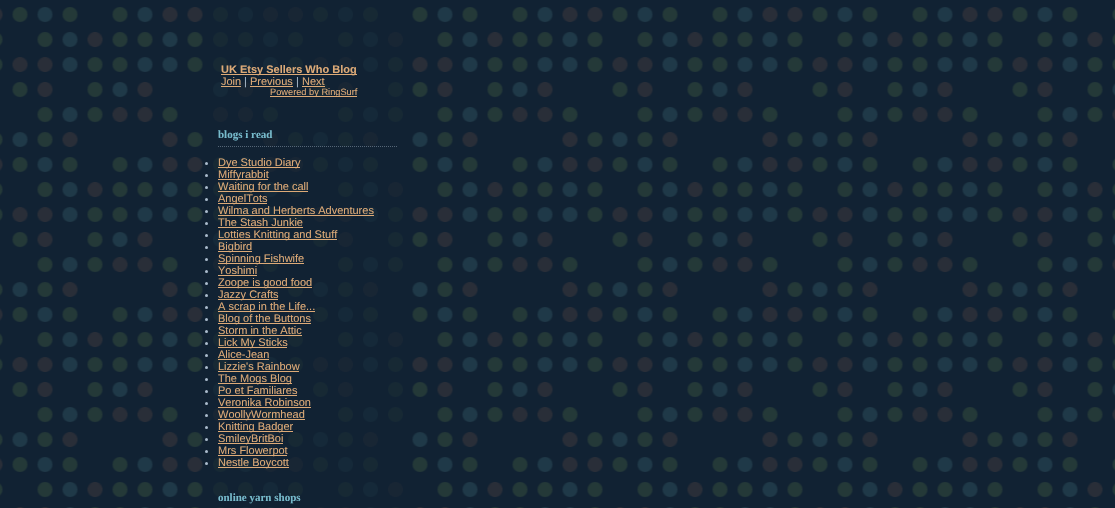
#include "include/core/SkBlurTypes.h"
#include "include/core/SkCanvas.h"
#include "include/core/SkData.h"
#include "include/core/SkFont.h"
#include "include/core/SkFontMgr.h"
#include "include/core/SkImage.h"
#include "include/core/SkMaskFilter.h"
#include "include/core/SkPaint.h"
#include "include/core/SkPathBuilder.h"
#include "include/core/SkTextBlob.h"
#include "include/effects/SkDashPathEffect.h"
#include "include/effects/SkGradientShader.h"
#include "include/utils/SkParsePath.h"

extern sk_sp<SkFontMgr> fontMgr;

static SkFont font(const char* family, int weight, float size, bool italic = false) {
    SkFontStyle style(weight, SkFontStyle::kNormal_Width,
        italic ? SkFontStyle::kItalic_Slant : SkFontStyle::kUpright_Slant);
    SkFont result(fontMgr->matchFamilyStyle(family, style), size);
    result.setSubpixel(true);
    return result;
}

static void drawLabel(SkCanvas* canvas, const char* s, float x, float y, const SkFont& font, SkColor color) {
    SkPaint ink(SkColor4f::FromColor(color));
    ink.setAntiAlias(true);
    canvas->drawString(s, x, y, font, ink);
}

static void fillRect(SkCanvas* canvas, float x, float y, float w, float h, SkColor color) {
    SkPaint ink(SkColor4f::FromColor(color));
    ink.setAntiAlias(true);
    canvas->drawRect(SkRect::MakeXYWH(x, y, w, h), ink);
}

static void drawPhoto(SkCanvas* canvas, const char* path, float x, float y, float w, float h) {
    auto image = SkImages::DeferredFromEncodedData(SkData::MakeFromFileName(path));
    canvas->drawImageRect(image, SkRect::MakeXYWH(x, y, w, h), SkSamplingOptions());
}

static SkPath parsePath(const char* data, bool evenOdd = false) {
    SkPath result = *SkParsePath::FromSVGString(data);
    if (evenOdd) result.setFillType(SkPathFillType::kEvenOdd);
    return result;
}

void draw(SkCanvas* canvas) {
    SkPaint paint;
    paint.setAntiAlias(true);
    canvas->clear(0xFF112233);
    drawPhoto(canvas, "assets/img1.png", 0, 7, 1115, 501);
    drawPhoto(canvas, "assets/img2.png", 212, 7, 191, 501);
    fillRect(canvas, 221, 74, 136, 1, 0xFFDDAA77);
    SkFont font1 = font("Liberation Sans", 700, 11);
    drawLabel(canvas, "UK Etsy Sellers Who Blog", 221, 73, font1, 0xFFDDAA77);
    SkFont font2 = font("Liberation Sans", 400, 11);
    drawLabel(canvas, "Join", 221, 85, font2, 0xFFDDAA77);
    fillRect(canvas, 221, 86, 20, 1, 0xFFDDAA77);
    drawLabel(canvas, "|", 244, 85, font2, 0xFFAABBCC);
    drawLabel(canvas, "Previous", 250, 85, font2, 0xFFDDAA77);
    fillRect(canvas, 250, 86, 43, 1, 0xFFDDAA77);
    drawLabel(canvas, "|", 296, 85, font2, 0xFFAABBCC);
    drawLabel(canvas, "Next", 302, 85, font2, 0xFFDDAA77);
    fillRect(canvas, 302, 86, 23, 1, 0xFFDDAA77);
    fillRect(canvas, 270, 96, 87, 1, 0xFFDDAA77);
    SkFont font3 = font("Liberation Sans", 400, 9.25f);
    drawLabel(canvas, "Powered by RingSurf", 270, 95, font3, 0xFFDDAA77);
    paint.setStroke(true);
    paint.setStrokeWidth(1);
    paint.setColor(0xFF556677);
    paint.setPathEffect(SkDashPathEffect::Make({{1, 1}}, 0));
    canvas->drawPath(parsePath("M218 146.5H398"), paint);
    paint.setPathEffect(nullptr);
    SkFont font4 = font("Liberation Serif", 700, 11);
    drawLabel(canvas, "blogs i read", 218, 138, font4, 0xFF77BBCC);
    paint.setStroke(false);
    paint.setColor(0xFFAABBCC);
    canvas->drawCircle(206.5f, 163.5f, 1.5f, paint);
    fillRect(canvas, 218, 167, 82, 1, 0xFFDDAA77);
    drawLabel(canvas, "Dye Studio Diary", 218, 166, font2, 0xFFDDAA77);
    canvas->drawCircle(206.5f, 175.5f, 1.5f, paint);
    fillRect(canvas, 218, 179, 50, 1, 0xFFDDAA77);
    drawLabel(canvas, "Miffyrabbit", 218, 178, font2, 0xFFDDAA77);
    canvas->drawCircle(206.5f, 187.5f, 1.5f, paint);
    fillRect(canvas, 218, 191, 90, 1, 0xFFDDAA77);
    drawLabel(canvas, "Waiting for the call", 218, 190, font2, 0xFFDDAA77);
    canvas->drawCircle(206.5f, 199.5f, 1.5f, paint);
    fillRect(canvas, 218, 203, 49, 1, 0xFFDDAA77);
    drawLabel(canvas, "AngelTots", 218, 202, font2, 0xFFDDAA77);
    canvas->drawCircle(206.5f, 211.5f, 1.5f, paint);
    drawLabel(canvas, "Wilma and Herberts Adventures", 218, 214, font2, 0xFFDDAA77);
    fillRect(canvas, 218, 215, 156, 1, 0xFFDDAA77);
    canvas->drawCircle(206.5f, 223.5f, 1.5f, paint);
    drawLabel(canvas, "The Stash Junkie", 218, 226, font2, 0xFFDDAA77);
    fillRect(canvas, 218, 227, 85, 1, 0xFFDDAA77);
    canvas->drawCircle(206.5f, 235.5f, 1.5f, paint);
    fillRect(canvas, 218, 239, 119, 1, 0xFFDDAA77);
    drawLabel(canvas, "Lotties Knitting and Stuff", 218, 238, font2, 0xFFDDAA77);
    canvas->drawCircle(206.5f, 247.5f, 1.5f, paint);
    fillRect(canvas, 218, 251, 34, 1, 0xFFDDAA77);
    drawLabel(canvas, "Bigbird", 218, 250, font2, 0xFFDDAA77);
    canvas->drawCircle(206.5f, 259.5f, 1.5f, paint);
    fillRect(canvas, 218, 263, 86, 1, 0xFFDDAA77);
    drawLabel(canvas, "Spinning Fishwife", 218, 262, font2, 0xFFDDAA77);
    canvas->drawCircle(206.5f, 271.5f, 1.5f, paint);
    drawLabel(canvas, "Yoshimi", 218, 274, font2, 0xFFDDAA77);
    fillRect(canvas, 218, 275, 39, 1, 0xFFDDAA77);
    canvas->drawCircle(206.5f, 283.5f, 1.5f, paint);
    fillRect(canvas, 218, 287, 94, 1, 0xFFDDAA77);
    drawLabel(canvas, "Zoope is good food", 218, 286, font2, 0xFFDDAA77);
    canvas->drawCircle(206.5f, 295.5f, 1.5f, paint);
    fillRect(canvas, 218, 299, 60, 1, 0xFFDDAA77);
    drawLabel(canvas, "Jazzy Crafts", 218, 298, font2, 0xFFDDAA77);
    canvas->drawCircle(206.5f, 307.5f, 1.5f, paint);
    fillRect(canvas, 218, 311, 97, 1, 0xFFDDAA77);
    drawLabel(canvas, "A scrap in the Life...", 218, 310, font2, 0xFFDDAA77);
    canvas->drawCircle(206.5f, 319.5f, 1.5f, paint);
    fillRect(canvas, 218, 323, 93, 1, 0xFFDDAA77);
    drawLabel(canvas, "Blog of the Buttons", 218, 322, font2, 0xFFDDAA77);
    canvas->drawCircle(206.5f, 331.5f, 1.5f, paint);
    drawLabel(canvas, "Storm in the Attic", 218, 334, font2, 0xFFDDAA77);
    fillRect(canvas, 218, 335, 84, 1, 0xFFDDAA77);
    canvas->drawCircle(206.5f, 343.5f, 1.5f, paint);
    fillRect(canvas, 218, 347, 69, 1, 0xFFDDAA77);
    drawLabel(canvas, "Lick My Sticks", 218, 346, font2, 0xFFDDAA77);
    canvas->drawCircle(206.5f, 355.5f, 1.5f, paint);
    drawLabel(canvas, "Alice-Jean", 218, 358, font2, 0xFFDDAA77);
    fillRect(canvas, 218, 359, 51, 1, 0xFFDDAA77);
    canvas->drawCircle(206.5f, 367.5f, 1.5f, paint);
    drawLabel(canvas, "Lizzie's Rainbow", 218, 370, font2, 0xFFDDAA77);
    fillRect(canvas, 218, 371, 81, 1, 0xFFDDAA77);
    canvas->drawCircle(206.5f, 379.5f, 1.5f, paint);
    fillRect(canvas, 218, 383, 74, 1, 0xFFDDAA77);
    drawLabel(canvas, "The Mogs Blog", 218, 382, font2, 0xFFDDAA77);
    canvas->drawCircle(206.5f, 391.5f, 1.5f, paint);
    drawLabel(canvas, "Po et Familiares", 218, 394, font2, 0xFFDDAA77);
    fillRect(canvas, 218, 395, 79, 1, 0xFFDDAA77);
    canvas->drawCircle(206.5f, 403.5f, 1.5f, paint);
    drawLabel(canvas, "Veronika Robinson", 218, 406, font2, 0xFFDDAA77);
    fillRect(canvas, 218, 407, 93, 1, 0xFFDDAA77);
    canvas->drawCircle(206.5f, 415.5f, 1.5f, paint);
    fillRect(canvas, 218, 419, 87, 1, 0xFFDDAA77);
    drawLabel(canvas, "WoollyWormhead", 218, 418, font2, 0xFFDDAA77);
    canvas->drawCircle(206.5f, 427.5f, 1.5f, paint);
    fillRect(canvas, 218, 431, 75, 1, 0xFFDDAA77);
    drawLabel(canvas, "Knitting Badger", 218, 430, font2, 0xFFDDAA77);
    canvas->drawCircle(206.5f, 439.5f, 1.5f, paint);
    fillRect(canvas, 218, 443, 65, 1, 0xFFDDAA77);
    drawLabel(canvas, "SmileyBritBoi", 218, 442, font2, 0xFFDDAA77);
    canvas->drawCircle(206.5f, 451.5f, 1.5f, paint);
    fillRect(canvas, 218, 455, 69, 1, 0xFFDDAA77);
    drawLabel(canvas, "Mrs Flowerpot", 218, 454, font2, 0xFFDDAA77);
    canvas->drawCircle(206.5f, 463.5f, 1.5f, paint);
    fillRect(canvas, 218, 467, 71, 1, 0xFFDDAA77);
    drawLabel(canvas, "Nestle Boycott", 218, 466, font2, 0xFFDDAA77);
    drawLabel(canvas, "online yarn shops", 218, 501, font4, 0xFF77BBCC);
}
